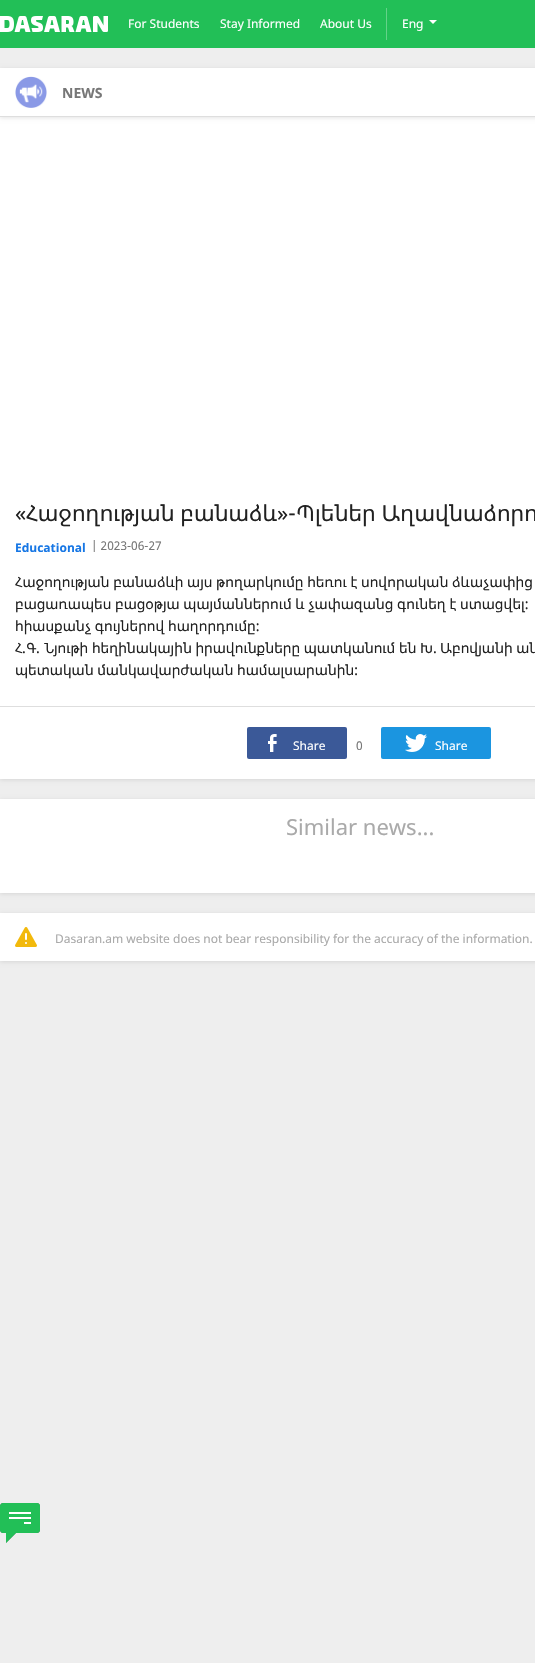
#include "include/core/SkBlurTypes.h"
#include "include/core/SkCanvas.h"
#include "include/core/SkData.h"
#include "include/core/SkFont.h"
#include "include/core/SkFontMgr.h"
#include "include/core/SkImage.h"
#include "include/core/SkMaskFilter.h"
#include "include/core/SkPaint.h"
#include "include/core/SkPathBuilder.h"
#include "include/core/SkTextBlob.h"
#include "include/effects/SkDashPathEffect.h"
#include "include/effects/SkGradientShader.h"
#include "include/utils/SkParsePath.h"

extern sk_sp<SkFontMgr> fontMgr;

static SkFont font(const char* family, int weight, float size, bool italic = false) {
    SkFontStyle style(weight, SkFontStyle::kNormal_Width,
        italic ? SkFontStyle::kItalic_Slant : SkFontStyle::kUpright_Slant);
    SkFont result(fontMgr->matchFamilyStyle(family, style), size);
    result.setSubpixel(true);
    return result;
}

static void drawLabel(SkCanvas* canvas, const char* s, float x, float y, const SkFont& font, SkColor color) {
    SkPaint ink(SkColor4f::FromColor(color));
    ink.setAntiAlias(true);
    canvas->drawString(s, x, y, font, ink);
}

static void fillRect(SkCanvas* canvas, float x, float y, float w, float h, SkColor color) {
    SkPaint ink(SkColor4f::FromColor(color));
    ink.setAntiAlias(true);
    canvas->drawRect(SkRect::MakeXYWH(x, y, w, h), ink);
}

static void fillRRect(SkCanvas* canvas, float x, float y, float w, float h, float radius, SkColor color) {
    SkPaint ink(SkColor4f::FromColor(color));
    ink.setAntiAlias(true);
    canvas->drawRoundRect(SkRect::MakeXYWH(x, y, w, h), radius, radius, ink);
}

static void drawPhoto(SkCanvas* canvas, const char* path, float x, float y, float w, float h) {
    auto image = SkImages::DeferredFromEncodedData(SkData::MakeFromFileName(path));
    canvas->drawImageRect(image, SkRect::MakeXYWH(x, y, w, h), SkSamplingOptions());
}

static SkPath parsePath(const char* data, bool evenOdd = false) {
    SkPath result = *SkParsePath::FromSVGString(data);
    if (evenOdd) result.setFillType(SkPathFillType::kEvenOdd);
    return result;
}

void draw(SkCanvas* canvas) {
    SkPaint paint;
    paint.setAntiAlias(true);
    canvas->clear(0xFFEEEEEE);
    fillRect(canvas, 0, 0, 535, 48, 0xFF22BF57);
    drawPhoto(canvas, "assets/img1.png", 0, 16, 108, 16);
    SkFont font1 = font("Noto Sans", 400, 12);
    drawLabel(canvas, "For Students", 128, 28, font1, 0xFFFFFFFF);
    drawLabel(canvas, "Stay Informed", 220, 28, font1, 0xFFFFFFFF);
    drawLabel(canvas, "About Us", 320, 28, font1, 0xFFFFFFFF);
    fillRect(canvas, 386, 8, 1, 32, 0xFF64D289);
    drawLabel(canvas, "Eng", 402, 28, font1, 0xFFFFFFFF);
    paint.setColor(0xFFFFFFFF);
    canvas->drawPath(parsePath("M429 20H437L433 24Z"), paint);
    paint.setColor(0x1A000000);
    paint.setMaskFilter(SkMaskFilter::MakeBlur(kNormal_SkBlurStyle, 2));
    canvas->drawRect(SkRect::MakeXYWH(0, 118, 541, 662), paint);
    paint.setMaskFilter(nullptr);
    fillRect(canvas, 0, 117, 535, 662, 0xFFFFFFFF);
    paint.setMaskFilter(SkMaskFilter::MakeBlur(kNormal_SkBlurStyle, 2));
    canvas->drawRect(SkRect::MakeXYWH(0, 69, 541, 49), paint);
    paint.setMaskFilter(nullptr);
    fillRect(canvas, 0, 68, 535, 48, 0xFFFFFFFF);
    fillRect(canvas, 0, 116, 535, 1, 0xFFDEDEDE);
    drawPhoto(canvas, "assets/img2.png", 15, 76, 32, 32);
    SkFont font2 = font("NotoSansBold", 700, 14);
    drawLabel(canvas, "NEWS", 62, 98, font2, 0xFF777777);
    SkFont font3 = font("Noto Sans", 400, 22);
    drawLabel(canvas, "«", 15, 521, font3, 0xFF212121);
    SkFont font4 = font("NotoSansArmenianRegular", 400, 22);
    drawLabel(canvas, "Հաջողության բանաձև", 26, 521, font4, 0xFF212121);
    drawLabel(canvas, "»-", 277, 521, font3, 0xFF212121);
    drawLabel(canvas, "Պլեներ Աղավնաձորո", 296, 521, font4, 0xFF212121);
    SkFont font5 = font("NotoSansBold", 700, 12);
    drawLabel(canvas, "Educational", 15, 552, font5, 0xFF1777E5);
    drawLabel(canvas, "| 2023-06-27", 91, 550, font1, 0xFF777777);
    SkFont font6 = font("NotoSansArmenianRegular", 400, 14);
    drawLabel(canvas, "Հաջողության բանաձևի այս թողարկումը հեռու է սովորական ձևաչափից", 15, 587, font6, 0xFF212121);
    drawLabel(canvas, "բացառապես բացօթյա պայմաններում և չափազանց գունեղ է ստացվել։", 15, 609, font6, 0xFF212121);
    drawLabel(canvas, "հիասքանչ գույներով հաղորդումը։", 15, 631, font6, 0xFF212121);
    drawLabel(canvas, "Հ Գ", 15, 653, font6, 0xFF212121);
    drawLabel(canvas, "Նյութի հեղինակային իրավունքները պատկանում են Խ", 44, 653, font6, 0xFF212121);
    drawLabel(canvas, "Աբովյանի ան", 440, 653, font6, 0xFF212121);
    SkFont font7 = font("Noto Sans", 400, 14);
    drawLabel(canvas, ".", 22, 653, font7, 0xFF212121);
    drawLabel(canvas, ".", 36, 653, font7, 0xFF212121);
    drawLabel(canvas, ".", 433, 653, font7, 0xFF212121);
    drawLabel(canvas, "պետական մանկավարժական համալսարանին", 15, 675, font6, 0xFF212121);
    drawLabel(canvas, ":", 354, 675, font7, 0xFF212121);
    fillRect(canvas, 0, 706, 535, 1, 0xFFDEDEDE);
    fillRRect(canvas, 247, 727, 100, 32, 2, 0xFF3B5998);
    drawPhoto(canvas, "assets/img3.png", 268, 734, 9, 18);
    drawLabel(canvas, "Share", 293, 750, font1, 0xFFFFFFFF);
    drawLabel(canvas, "0", 356, 750, font1, 0xFF777777);
    fillRRect(canvas, 381, 727, 110, 32, 2, 0xFF1B95E0);
    drawPhoto(canvas, "assets/img4.png", 405, 734, 22, 18);
    drawLabel(canvas, "Share", 435, 750, font1, 0xFFFFFFFF);
    paint.setMaskFilter(SkMaskFilter::MakeBlur(kNormal_SkBlurStyle, 2));
    canvas->drawRect(SkRect::MakeXYWH(0, 800, 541, 94), paint);
    paint.setMaskFilter(nullptr);
    fillRect(canvas, 0, 799, 535, 94, 0xFFFFFFFF);
    drawLabel(canvas, "Similar news...", 286, 835, font3, 0xFFAAAAAA);
    paint.setMaskFilter(SkMaskFilter::MakeBlur(kNormal_SkBlurStyle, 2));
    canvas->drawRect(SkRect::MakeXYWH(0, 914, 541, 48), paint);
    paint.setMaskFilter(nullptr);
    fillRect(canvas, 0, 913, 535, 48, 0xFFFFFFFF);
    drawPhoto(canvas, "assets/img5.png", 15, 927, 22, 20);
    drawLabel(canvas, "Dasaran.am website does not bear responsibility for the accuracy of the information.", 55, 943, font1, 0xFFAAAAAA);
    drawPhoto(canvas, "assets/img6.png", 0, 1503, 40, 40);
}
